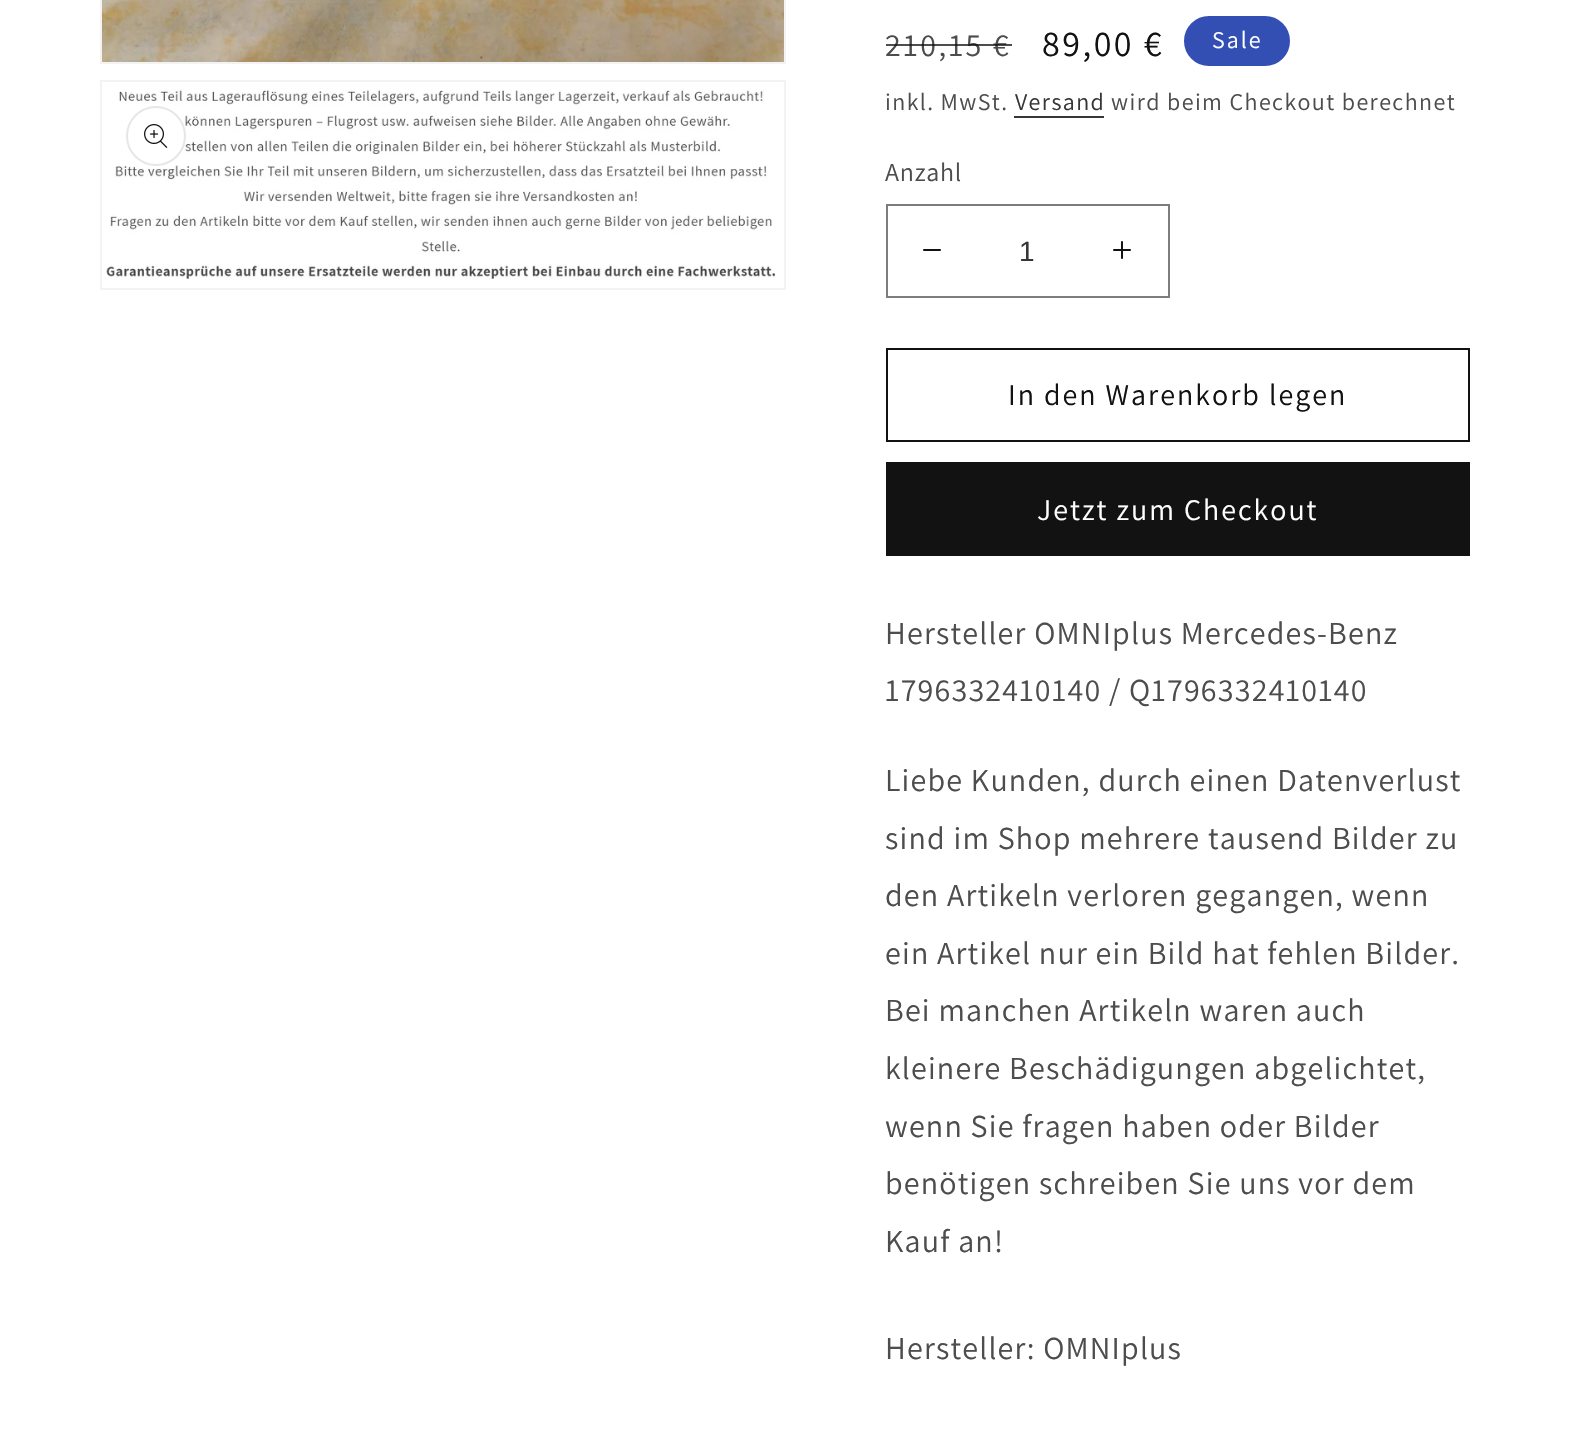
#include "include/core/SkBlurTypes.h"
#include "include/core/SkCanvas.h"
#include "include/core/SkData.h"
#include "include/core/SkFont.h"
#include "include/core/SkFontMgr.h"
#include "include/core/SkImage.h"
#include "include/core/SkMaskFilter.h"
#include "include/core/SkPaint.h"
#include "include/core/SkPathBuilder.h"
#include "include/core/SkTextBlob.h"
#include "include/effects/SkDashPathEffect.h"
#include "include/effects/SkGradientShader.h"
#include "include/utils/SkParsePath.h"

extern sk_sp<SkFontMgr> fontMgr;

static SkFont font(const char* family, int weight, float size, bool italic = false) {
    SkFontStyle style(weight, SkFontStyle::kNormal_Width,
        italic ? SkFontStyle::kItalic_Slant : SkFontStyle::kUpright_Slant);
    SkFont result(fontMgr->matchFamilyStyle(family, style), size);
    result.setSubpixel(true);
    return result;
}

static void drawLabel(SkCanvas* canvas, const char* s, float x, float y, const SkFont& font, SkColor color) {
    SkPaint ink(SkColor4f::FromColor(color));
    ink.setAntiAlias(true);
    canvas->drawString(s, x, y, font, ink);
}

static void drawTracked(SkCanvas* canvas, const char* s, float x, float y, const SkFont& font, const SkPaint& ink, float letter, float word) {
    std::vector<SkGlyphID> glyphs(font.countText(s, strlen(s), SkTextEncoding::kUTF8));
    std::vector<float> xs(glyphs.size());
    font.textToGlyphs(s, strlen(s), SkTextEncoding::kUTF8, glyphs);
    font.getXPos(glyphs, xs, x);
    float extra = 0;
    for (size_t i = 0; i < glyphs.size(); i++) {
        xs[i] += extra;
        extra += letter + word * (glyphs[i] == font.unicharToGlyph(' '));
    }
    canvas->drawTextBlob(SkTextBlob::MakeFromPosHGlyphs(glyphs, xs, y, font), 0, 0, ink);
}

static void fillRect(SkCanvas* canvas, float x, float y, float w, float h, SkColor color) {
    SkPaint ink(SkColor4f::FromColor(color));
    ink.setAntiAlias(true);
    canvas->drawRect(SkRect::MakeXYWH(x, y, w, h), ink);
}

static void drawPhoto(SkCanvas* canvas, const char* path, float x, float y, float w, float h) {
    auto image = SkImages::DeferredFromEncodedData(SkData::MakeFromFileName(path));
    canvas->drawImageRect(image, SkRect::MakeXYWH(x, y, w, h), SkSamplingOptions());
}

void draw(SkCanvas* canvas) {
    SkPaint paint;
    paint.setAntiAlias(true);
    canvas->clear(0xFFFFFFFF);
    paint.setStroke(true);
    paint.setStrokeWidth(2);
    paint.setColor(0xFFF3F3F3);
    canvas->drawRect(SkRect::MakeXYWH(101, -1, 684, 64), paint);
    drawPhoto(canvas, "assets/img1.png", 102, 0, 682, 62);
    canvas->drawRect(SkRect::MakeXYWH(101, 81, 684, 208), paint);
    drawPhoto(canvas, "assets/img2.png", 106, 89, 670, 190);
    paint.setStroke(false);
    paint.setColor(0xFFFFFFFF);
    canvas->drawCircle(156, 136, 29, paint);
    paint.setStroke(true);
    paint.setColor(0xFFE7E7E7);
    canvas->drawCircle(156, 136, 29, paint);
    drawPhoto(canvas, "assets/img3.png", 144, 124, 24, 24);
    SkFont font1 = font("Assistant", 400, 32);
    paint.setStroke(false);
    paint.setColor(0xFF4D4D4D);
    drawTracked(canvas, "210,15 €", 885, 56, font1, paint, 2.5f, 0);
    fillRect(canvas, 886, 44, 126, 2, 0xBF121212);
    SkFont font2 = font("Assistant", 400, 36);
    paint.setColor(0xFF121212);
    drawTracked(canvas, "89,00 €", 1042, 56, font2, paint, 2.5f, 0);
    paint.setColor(0xFF334FB4);
    canvas->drawRoundRect(SkRect::MakeXYWH(1185, 17, 104, 48), 24, 24, paint);
    paint.setStroke(true);
    canvas->drawRoundRect(SkRect::MakeXYWH(1185, 17, 104, 48), 24, 24, paint);
    SkFont font3 = font("Assistant", 400, 24);
    paint.setStroke(false);
    paint.setColor(0xFFFFFFFF);
    drawTracked(canvas, "Sale", 1212, 48, font3, paint, 2, 0);
    paint.setColor(0xFF4D4D4D);
    drawTracked(canvas, "inkl. MwSt.", 885, 110, font3, paint, 1.4f, 0);
    paint.setColor(0xFF363636);
    drawTracked(canvas, "Versand", 1015, 110, font3, paint, 1.4f, 0);
    fillRect(canvas, 1014, 116, 90, 2, 0xFF363636);
    paint.setColor(0xFF4D4D4D);
    drawTracked(canvas, "wird beim Checkout berechnet", 1111, 110, font3, paint, 1.4f, 0);
    SkFont font4 = font("Assistant", 400, 26);
    drawTracked(canvas, "Anzahl", 885, 181, font4, paint, 0.75f, 0);
    drawPhoto(canvas, "assets/img4.png", 923, 249, 18, 2);
    drawPhoto(canvas, "assets/img5.png", 1113, 241, 18, 18);
    paint.setStroke(true);
    paint.setColor(0xFF7D7D7D);
    canvas->drawRect(SkRect::MakeXYWH(887, 205, 282, 92), paint);
    SkFont font5 = font("Liberation Sans", 400, 28);
    drawLabel(canvas, "1", 1019, 261, font5, 0xFF363636);
    paint.setColor(0xFF121212);
    canvas->drawRect(SkRect::MakeXYWH(887, 349, 582, 92), paint);
    SkFont font6 = font("Assistant", 400, 30);
    paint.setStroke(false);
    drawTracked(canvas, "In den Warenkorb legen", 1008, 405, font6, paint, 2, 0);
    fillRect(canvas, 886, 462, 584, 94, 0xFF121212);
    paint.setColor(0xFFFFFFFF);
    drawTracked(canvas, "Jetzt zum Checkout", 1037, 520, font6, paint, 2, 0);
    paint.setColor(0xFF4D4D4D);
    drawTracked(canvas, "Hersteller OMNIplus Mercedes-Benz", 885, 644, font1, paint, 1.2f, 0);
    drawTracked(canvas, "1796332410140 / Q1796332410140", 885, 701, font1, paint, 1.2f, 0);
    drawTracked(canvas, "Liebe Kunden, durch einen Datenverlust", 885, 791, font1, paint, 1.2f, 0);
    drawTracked(canvas, "sind im Shop mehrere tausend Bilder zu", 885, 849, font1, paint, 1.2f, 0);
    drawTracked(canvas, "den Artikeln verloren gegangen, wenn", 885, 906, font1, paint, 1.2f, 0);
    drawTracked(canvas, "ein Artikel nur ein Bild hat fehlen Bilder.", 885, 964, font1, paint, 1.2f, 0);
    drawTracked(canvas, "Bei manchen Artikeln waren auch", 885, 1021, font1, paint, 1.2f, 0);
    drawTracked(canvas, "kleinere Beschädigungen abgelichtet,", 885, 1079, font1, paint, 1.2f, 0);
    drawTracked(canvas, "wenn Sie fragen haben oder Bilder", 885, 1137, font1, paint, 1.2f, 0);
    drawTracked(canvas, "benötigen schreiben Sie uns vor dem", 885, 1194, font1, paint, 1.2f, 0);
    drawTracked(canvas, "Kauf an!", 885, 1252, font1, paint, 1.2f, 0);
    drawTracked(canvas, "Hersteller: OMNIplus", 885, 1359, font1, paint, 1.2f, 0);
}
